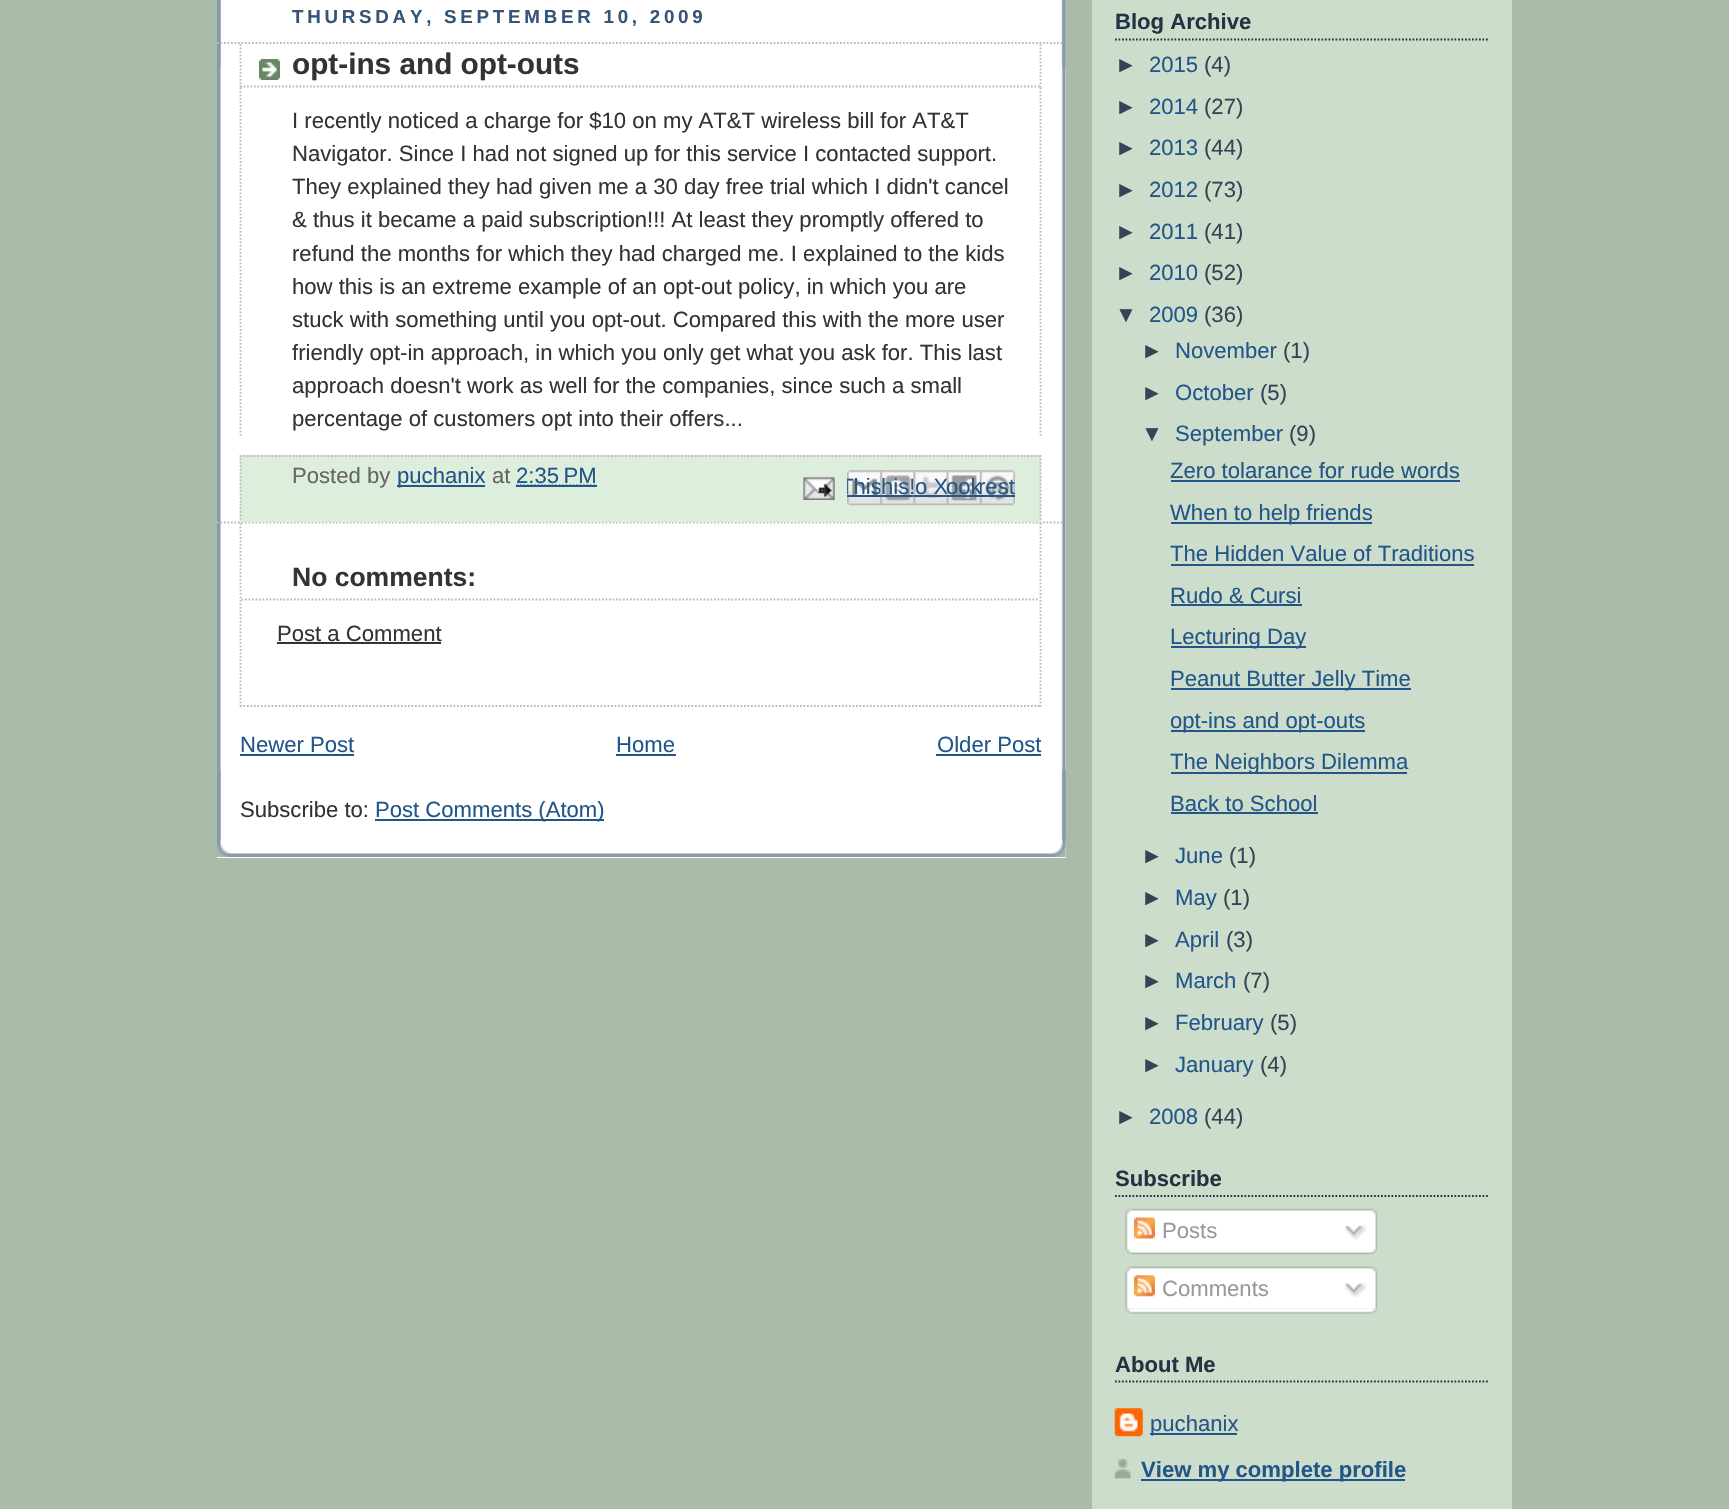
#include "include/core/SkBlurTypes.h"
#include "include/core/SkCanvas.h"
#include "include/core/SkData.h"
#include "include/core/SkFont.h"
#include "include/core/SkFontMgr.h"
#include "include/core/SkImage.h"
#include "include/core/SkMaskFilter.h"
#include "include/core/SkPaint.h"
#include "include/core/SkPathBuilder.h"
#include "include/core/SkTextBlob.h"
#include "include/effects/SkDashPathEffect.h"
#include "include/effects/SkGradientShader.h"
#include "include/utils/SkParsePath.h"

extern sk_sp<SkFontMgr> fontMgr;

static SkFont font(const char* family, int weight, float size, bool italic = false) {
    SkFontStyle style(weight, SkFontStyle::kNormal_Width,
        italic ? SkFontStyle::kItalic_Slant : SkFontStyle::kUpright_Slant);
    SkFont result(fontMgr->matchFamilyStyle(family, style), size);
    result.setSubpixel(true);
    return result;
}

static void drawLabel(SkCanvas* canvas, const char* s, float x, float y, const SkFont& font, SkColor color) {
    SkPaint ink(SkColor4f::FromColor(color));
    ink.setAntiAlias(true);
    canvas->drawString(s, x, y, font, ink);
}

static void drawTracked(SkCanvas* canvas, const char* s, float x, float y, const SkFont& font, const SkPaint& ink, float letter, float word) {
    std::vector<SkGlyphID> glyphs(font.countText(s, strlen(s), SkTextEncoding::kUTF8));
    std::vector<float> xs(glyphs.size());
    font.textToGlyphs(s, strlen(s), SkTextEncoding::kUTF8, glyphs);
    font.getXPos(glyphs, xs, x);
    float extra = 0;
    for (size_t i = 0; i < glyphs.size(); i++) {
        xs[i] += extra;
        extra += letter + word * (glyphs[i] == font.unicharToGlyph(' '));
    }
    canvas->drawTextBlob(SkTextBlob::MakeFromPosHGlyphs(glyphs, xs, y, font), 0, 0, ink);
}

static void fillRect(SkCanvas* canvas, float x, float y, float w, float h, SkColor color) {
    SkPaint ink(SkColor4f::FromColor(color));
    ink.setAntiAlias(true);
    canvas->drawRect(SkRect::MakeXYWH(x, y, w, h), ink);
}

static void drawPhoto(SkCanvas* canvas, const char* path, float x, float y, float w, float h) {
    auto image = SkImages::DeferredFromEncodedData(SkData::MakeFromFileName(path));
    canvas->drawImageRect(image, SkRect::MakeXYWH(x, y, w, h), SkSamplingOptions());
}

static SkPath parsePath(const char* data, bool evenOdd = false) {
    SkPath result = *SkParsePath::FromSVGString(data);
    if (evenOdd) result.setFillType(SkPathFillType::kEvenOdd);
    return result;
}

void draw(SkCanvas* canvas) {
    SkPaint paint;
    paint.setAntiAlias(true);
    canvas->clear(0xFFAABBAA);
    fillRect(canvas, 217, 0, 849, 858, 0xFFFFFFFF);
    drawPhoto(canvas, "assets/img1.png", 217, 769, 849, 88);
    drawPhoto(canvas, "assets/img2.png", 220, 0, 846, 68);
    drawPhoto(canvas, "assets/img3.png", 217, 0, 849, 840);
    SkFont font1 = font("Liberation Sans", 700, 18.75f);
    paint.setColor(0xFF335577);
    drawTracked(canvas, "THURSDAY, SEPTEMBER 10, 2009", 292, 23, font1, paint, 3.75f, 0);
    paint.setStroke(true);
    paint.setStrokeWidth(1.8f);
    paint.setColor(0xFFBBBBBB);
    paint.setPathEffect(SkDashPathEffect::Make({{1.75f, 1.75f}}, 0));
    canvas->drawPath(parsePath("M217 43H1064"), paint);
    paint.setPathEffect(nullptr);
    paint.setPathEffect(SkDashPathEffect::Make({{1.75f, 1.75f}}, 0));
    canvas->drawPath(parsePath("M217 522.5H1064"), paint);
    paint.setPathEffect(nullptr);
    drawPhoto(canvas, "assets/img4.png", 259, 59, 21, 21);
    paint.setPathEffect(SkDashPathEffect::Make({{1.75f, 1.75f}}, 0));
    canvas->drawPath(parsePath("M1040.5 44V87.5"), paint);
    paint.setPathEffect(nullptr);
    paint.setPathEffect(SkDashPathEffect::Make({{1.75f, 1.75f}}, 0));
    canvas->drawPath(parsePath("M240 86.5H1041"), paint);
    paint.setPathEffect(nullptr);
    paint.setPathEffect(SkDashPathEffect::Make({{1.75f, 1.75f}}, 0));
    canvas->drawPath(parsePath("M240.5 44V87.5"), paint);
    paint.setPathEffect(nullptr);
    SkFont font2 = font("Liberation Sans", 700, 29.75f);
    drawLabel(canvas, "opt-ins and opt-outs", 292, 74, font2, 0xFF333333);
    paint.setPathEffect(SkDashPathEffect::Make({{1.75f, 1.75f}}, 0));
    canvas->drawPath(parsePath("M1040.5 87.5V437.5"), paint);
    paint.setPathEffect(nullptr);
    paint.setPathEffect(SkDashPathEffect::Make({{1.75f, 1.75f}}, 0));
    canvas->drawPath(parsePath("M240.5 87.5V437.5"), paint);
    paint.setPathEffect(nullptr);
    SkFont font3 = font("Liberation Sans", 400, 22.1f);
    drawLabel(canvas, "I recently noticed a charge for $10 on my AT&T wireless bill for AT&T", 292, 128, font3, 0xFF333333);
    drawLabel(canvas, "Navigator. Since I had not signed up for this service I contacted support.", 292, 161, font3, 0xFF333333);
    drawLabel(canvas, "They explained they had given me a 30 day free trial which I didn't cancel", 292, 194, font3, 0xFF333333);
    drawLabel(canvas, "& thus it became a paid subscription!!! At least they promptly offered to", 292, 227, font3, 0xFF333333);
    drawLabel(canvas, "refund the months for which they had charged me. I explained to the kids", 292, 261, font3, 0xFF333333);
    drawLabel(canvas, "how this is an extreme example of an opt-out policy, in which you are", 292, 294, font3, 0xFF333333);
    drawLabel(canvas, "stuck with something until you opt-out. Compared this with the more user", 292, 327, font3, 0xFF333333);
    drawLabel(canvas, "friendly opt-in approach, in which you only get what you ask for. This last", 292, 360, font3, 0xFF333333);
    drawLabel(canvas, "approach doesn't work as well for the companies, since such a small", 292, 393, font3, 0xFF333333);
    drawLabel(canvas, "percentage of customers opt into their offers...", 292, 426, font3, 0xFF333333);
    fillRect(canvas, 240, 455, 801, 67, 0xFFDDEEDD);
    paint.setPathEffect(SkDashPathEffect::Make({{1.75f, 1.75f}}, 0));
    canvas->drawPath(parsePath("M240 456H1041"), paint);
    paint.setPathEffect(nullptr);
    paint.setPathEffect(SkDashPathEffect::Make({{1.75f, 1.75f}}, 0));
    canvas->drawPath(parsePath("M1040.5 455V521.5"), paint);
    paint.setPathEffect(nullptr);
    paint.setPathEffect(SkDashPathEffect::Make({{1.75f, 1.75f}}, 0));
    canvas->drawPath(parsePath("M240.5 455V521.5"), paint);
    paint.setPathEffect(nullptr);
    drawLabel(canvas, "Posted by", 292, 483, font3, 0xFF666666);
    fillRect(canvas, 397, 485, 88, 2, 0xFF225588);
    drawLabel(canvas, "puchanix", 397, 483, font3, 0xFF225588);
    drawLabel(canvas, "at", 492, 483, font3, 0xFF666666);
    drawLabel(canvas, "2:35 PM", 516, 483, font3, 0xFF225588);
    paint.setColor(0xFF225588);
    paint.setPathEffect(SkDashPathEffect::Make({{1.75f, 1.75f}}, 0));
    canvas->drawPath(parsePath("M516.5 485.5H597"), paint);
    paint.setPathEffect(nullptr);
    fillRect(canvas, 516, 485, 81, 2, 0xFF225588);
    drawPhoto(canvas, "assets/img5.png", 803, 477, 32, 23);
    drawPhoto(canvas, "assets/img6.png", 847, 470, 35, 36);
    canvas->save();
    canvas->clipRect(SkRect::MakeXYWH(847, 471, 35, 35));
    drawLabel(canvas, "This", 840, 494, font3, 0xFF225588);
    canvas->restore();
    fillRect(canvas, 847, 495, 35, 2, 0xFF225588);
    drawPhoto(canvas, "assets/img7.png", 880, 470, 36, 36);
    drawLabel(canvas, "his!", 881, 494, font3, 0xFF225588);
    fillRect(canvas, 880, 495, 35, 2, 0xFF225588);
    drawPhoto(canvas, "assets/img8.png", 913, 470, 36, 36);
    drawLabel(canvas, "o X", 915, 494, font3, 0xFF225588);
    fillRect(canvas, 914, 495, 35, 2, 0xFF225588);
    drawPhoto(canvas, "assets/img9.png", 946, 470, 36, 36);
    drawLabel(canvas, "ook", 946, 494, font3, 0xFF225588);
    fillRect(canvas, 947, 495, 35, 2, 0xFF225588);
    drawPhoto(canvas, "assets/img10.png", 980, 470, 35, 36);
    canvas->save();
    canvas->clipRect(SkRect::MakeXYWH(980, 471, 35, 35));
    drawLabel(canvas, "rest", 978, 494, font3, 0xFF225588);
    canvas->restore();
    fillRect(canvas, 980, 495, 35, 2, 0xFF225588);
    paint.setColor(0xFFBBBBBB);
    paint.setPathEffect(SkDashPathEffect::Make({{1.75f, 1.75f}}, 0));
    canvas->drawPath(parsePath("M1040.5 523V707"), paint);
    paint.setPathEffect(nullptr);
    paint.setPathEffect(SkDashPathEffect::Make({{1.75f, 1.75f}}, 0));
    canvas->drawPath(parsePath("M240 706H1041"), paint);
    paint.setPathEffect(nullptr);
    paint.setPathEffect(SkDashPathEffect::Make({{1.75f, 1.75f}}, 0));
    canvas->drawPath(parsePath("M240.5 523V707"), paint);
    paint.setPathEffect(nullptr);
    paint.setPathEffect(SkDashPathEffect::Make({{1.75f, 1.75f}}, 0));
    canvas->drawPath(parsePath("M241.5 599.5H1039.5"), paint);
    paint.setPathEffect(nullptr);
    SkFont font4 = font("Liberation Sans", 700, 26.5f);
    drawLabel(canvas, "No comments:", 292, 586, font4, 0xFF333333);
    drawLabel(canvas, "Post a Comment", 277, 641, font3, 0xFF333333);
    fillRect(canvas, 277, 642, 164, 2, 0xFF333333);
    drawLabel(canvas, "Newer Post", 240, 752, font3, 0xFF225588);
    fillRect(canvas, 240, 754, 114, 2, 0xFF225588);
    drawLabel(canvas, "Home", 616, 752, font3, 0xFF225588);
    fillRect(canvas, 616, 754, 60, 2, 0xFF225588);
    drawLabel(canvas, "Older Post", 937, 752, font3, 0xFF225588);
    fillRect(canvas, 936, 754, 105, 2, 0xFF225588);
    drawLabel(canvas, "Subscribe to:", 240, 817, font3, 0xFF333333);
    fillRect(canvas, 375, 819, 229, 2, 0xFF225588);
    drawLabel(canvas, "Post Comments (Atom)", 375, 817, font3, 0xFF225588);
    fillRect(canvas, 1092, 0, 420, 1509, 0xFFCCDDCC);
    paint.setColor(0xFF223344);
    paint.setPathEffect(SkDashPathEffect::Make({{1.75f, 1.75f}}, 0));
    canvas->drawPath(parsePath("M1115 39.5H1489"), paint);
    paint.setPathEffect(nullptr);
    SkFont font5 = font("Liberation Sans", 700, 22.1f);
    drawLabel(canvas, "Blog Archive", 1115, 29, font5, 0xFF223344);
    drawLabel(canvas, "►", 1115, 72, font3, 0xFF334455);
    drawLabel(canvas, "2015", 1149, 72, font3, 0xFF225588);
    drawLabel(canvas, "(4)", 1204, 72, font3, 0xFF334455);
    drawLabel(canvas, "►", 1115, 114, font3, 0xFF334455);
    drawLabel(canvas, "2014", 1149, 114, font3, 0xFF225588);
    drawLabel(canvas, "(27)", 1204, 114, font3, 0xFF334455);
    drawLabel(canvas, "►", 1115, 155, font3, 0xFF334455);
    drawLabel(canvas, "2013", 1149, 155, font3, 0xFF225588);
    drawLabel(canvas, "(44)", 1204, 155, font3, 0xFF334455);
    drawLabel(canvas, "►", 1115, 197, font3, 0xFF334455);
    drawLabel(canvas, "2012", 1149, 197, font3, 0xFF225588);
    drawLabel(canvas, "(73)", 1204, 197, font3, 0xFF334455);
    drawLabel(canvas, "►", 1115, 239, font3, 0xFF334455);
    drawLabel(canvas, "2011", 1149, 239, font3, 0xFF225588);
    drawLabel(canvas, "(41)", 1204, 239, font3, 0xFF334455);
    drawLabel(canvas, "►", 1115, 280, font3, 0xFF334455);
    drawLabel(canvas, "2010", 1149, 280, font3, 0xFF225588);
    drawLabel(canvas, "(52)", 1204, 280, font3, 0xFF334455);
    drawLabel(canvas, "▼", 1115, 322, font3, 0xFF334455);
    drawLabel(canvas, "2009", 1149, 322, font3, 0xFF225588);
    drawLabel(canvas, "(36)", 1204, 322, font3, 0xFF334455);
    drawLabel(canvas, "►", 1141, 358, font3, 0xFF334455);
    drawLabel(canvas, "November", 1175, 358, font3, 0xFF225588);
    drawLabel(canvas, "(1)", 1283, 358, font3, 0xFF334455);
    drawLabel(canvas, "►", 1141, 400, font3, 0xFF334455);
    drawLabel(canvas, "October", 1175, 400, font3, 0xFF225588);
    drawLabel(canvas, "(5)", 1260, 400, font3, 0xFF334455);
    drawLabel(canvas, "▼", 1141, 441, font3, 0xFF334455);
    drawLabel(canvas, "September", 1175, 441, font3, 0xFF225588);
    drawLabel(canvas, "(9)", 1289, 441, font3, 0xFF334455);
    drawLabel(canvas, "Zero tolarance for rude words", 1170, 478, font3, 0xFF225588);
    fillRect(canvas, 1171, 480, 289, 2, 0xFF225588);
    fillRect(canvas, 1171, 522, 201, 2, 0xFF225588);
    drawLabel(canvas, "When to help friends", 1170, 520, font3, 0xFF225588);
    drawLabel(canvas, "The Hidden Value of Traditions", 1170, 561, font3, 0xFF225588);
    fillRect(canvas, 1171, 564, 303, 2, 0xFF225588);
    drawLabel(canvas, "Rudo & Cursi", 1170, 603, font3, 0xFF225588);
    fillRect(canvas, 1171, 604, 131, 2, 0xFF225588);
    fillRect(canvas, 1171, 646, 135, 2, 0xFF225588);
    drawLabel(canvas, "Lecturing Day", 1170, 644, font3, 0xFF225588);
    fillRect(canvas, 1171, 688, 240, 2, 0xFF225588);
    drawLabel(canvas, "Peanut Butter Jelly Time", 1170, 686, font3, 0xFF225588);
    fillRect(canvas, 1171, 730, 194, 2, 0xFF225588);
    drawLabel(canvas, "opt-ins and opt-outs", 1170, 728, font3, 0xFF225588);
    fillRect(canvas, 1171, 772, 236, 2, 0xFF225588);
    drawLabel(canvas, "The Neighbors Dilemma", 1170, 769, font3, 0xFF225588);
    drawLabel(canvas, "Back to School", 1170, 811, font3, 0xFF225588);
    fillRect(canvas, 1171, 812, 147, 2, 0xFF225588);
    drawLabel(canvas, "►", 1141, 863, font3, 0xFF334455);
    drawLabel(canvas, "June", 1175, 863, font3, 0xFF225588);
    drawLabel(canvas, "(1)", 1229, 863, font3, 0xFF334455);
    drawLabel(canvas, "►", 1141, 905, font3, 0xFF334455);
    drawLabel(canvas, "May", 1175, 905, font3, 0xFF225588);
    drawLabel(canvas, "(1)", 1223, 905, font3, 0xFF334455);
    drawLabel(canvas, "►", 1141, 947, font3, 0xFF334455);
    drawLabel(canvas, "April", 1175, 947, font3, 0xFF225588);
    drawLabel(canvas, "(3)", 1226, 947, font3, 0xFF334455);
    drawLabel(canvas, "►", 1141, 988, font3, 0xFF334455);
    drawLabel(canvas, "March", 1175, 988, font3, 0xFF225588);
    drawLabel(canvas, "(7)", 1243, 988, font3, 0xFF334455);
    drawLabel(canvas, "►", 1141, 1030, font3, 0xFF334455);
    drawLabel(canvas, "February", 1175, 1030, font3, 0xFF225588);
    drawLabel(canvas, "(5)", 1270, 1030, font3, 0xFF334455);
    drawLabel(canvas, "►", 1141, 1072, font3, 0xFF334455);
    drawLabel(canvas, "January", 1175, 1072, font3, 0xFF225588);
    drawLabel(canvas, "(4)", 1260, 1072, font3, 0xFF334455);
    drawLabel(canvas, "►", 1115, 1124, font3, 0xFF334455);
    drawLabel(canvas, "2008", 1149, 1124, font3, 0xFF225588);
    drawLabel(canvas, "(44)", 1204, 1124, font3, 0xFF334455);
    paint.setPathEffect(SkDashPathEffect::Make({{1.75f, 1.75f}}, 0));
    canvas->drawPath(parsePath("M1115 1196H1489"), paint);
    paint.setPathEffect(nullptr);
    drawLabel(canvas, "Subscribe", 1115, 1186, font5, 0xFF223344);
    drawPhoto(canvas, "assets/img11.png", 1125, 1208, 253, 41);
    drawPhoto(canvas, "assets/img12.png", 1134, 1217, 21, 22);
    drawLabel(canvas, "Posts", 1162, 1238, font3, 0xFF999999);
    drawPhoto(canvas, "assets/img13.png", 1344, 1225, 23, 15);
    drawPhoto(canvas, "assets/img14.png", 1125, 1249, 252, 6);
    drawPhoto(canvas, "assets/img15.png", 1125, 1266, 253, 43);
    drawPhoto(canvas, "assets/img16.png", 1134, 1275, 21, 22);
    drawLabel(canvas, "Comments", 1162, 1296, font3, 0xFF999999);
    drawPhoto(canvas, "assets/img17.png", 1344, 1282, 23, 16);
    drawPhoto(canvas, "assets/img18.png", 1125, 1308, 252, 6);
    paint.setPathEffect(SkDashPathEffect::Make({{1.75f, 1.75f}}, 0));
    canvas->drawPath(parsePath("M1115 1381.5H1489"), paint);
    paint.setPathEffect(nullptr);
    drawLabel(canvas, "About Me", 1115, 1372, font5, 0xFF223344);
    drawPhoto(canvas, "assets/img19.png", 1114, 1408, 29, 29);
    fillRect(canvas, 1150, 1433, 87, 2, 0xFF225588);
    drawLabel(canvas, "puchanix", 1150, 1431, font3, 0xFF225588);
    drawPhoto(canvas, "assets/img20.png", 1114, 1459, 17, 20);
    fillRect(canvas, 1141, 1479, 264, 2, 0xFF225588);
    drawLabel(canvas, "View my complete profile", 1141, 1477, font5, 0xFF225588);
}
